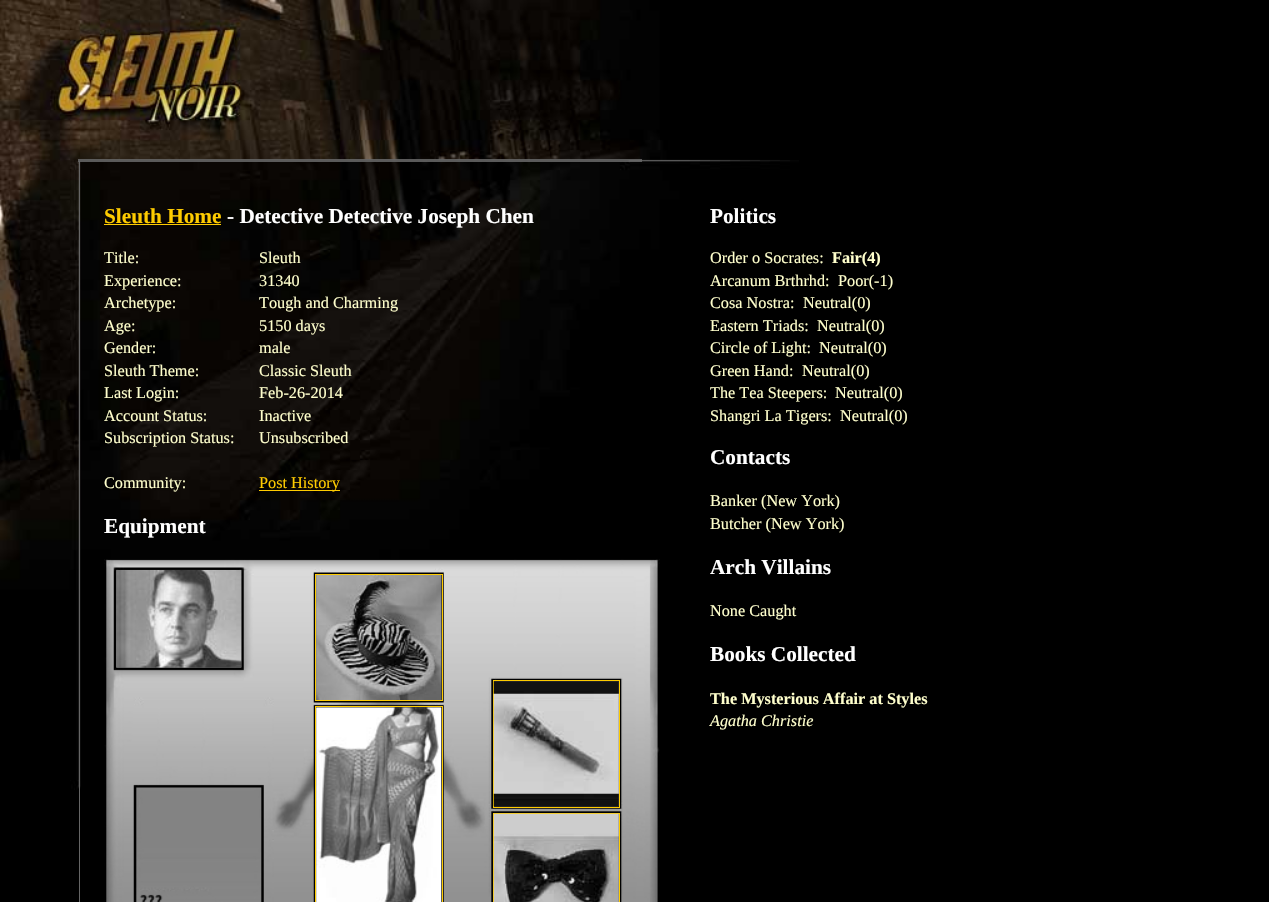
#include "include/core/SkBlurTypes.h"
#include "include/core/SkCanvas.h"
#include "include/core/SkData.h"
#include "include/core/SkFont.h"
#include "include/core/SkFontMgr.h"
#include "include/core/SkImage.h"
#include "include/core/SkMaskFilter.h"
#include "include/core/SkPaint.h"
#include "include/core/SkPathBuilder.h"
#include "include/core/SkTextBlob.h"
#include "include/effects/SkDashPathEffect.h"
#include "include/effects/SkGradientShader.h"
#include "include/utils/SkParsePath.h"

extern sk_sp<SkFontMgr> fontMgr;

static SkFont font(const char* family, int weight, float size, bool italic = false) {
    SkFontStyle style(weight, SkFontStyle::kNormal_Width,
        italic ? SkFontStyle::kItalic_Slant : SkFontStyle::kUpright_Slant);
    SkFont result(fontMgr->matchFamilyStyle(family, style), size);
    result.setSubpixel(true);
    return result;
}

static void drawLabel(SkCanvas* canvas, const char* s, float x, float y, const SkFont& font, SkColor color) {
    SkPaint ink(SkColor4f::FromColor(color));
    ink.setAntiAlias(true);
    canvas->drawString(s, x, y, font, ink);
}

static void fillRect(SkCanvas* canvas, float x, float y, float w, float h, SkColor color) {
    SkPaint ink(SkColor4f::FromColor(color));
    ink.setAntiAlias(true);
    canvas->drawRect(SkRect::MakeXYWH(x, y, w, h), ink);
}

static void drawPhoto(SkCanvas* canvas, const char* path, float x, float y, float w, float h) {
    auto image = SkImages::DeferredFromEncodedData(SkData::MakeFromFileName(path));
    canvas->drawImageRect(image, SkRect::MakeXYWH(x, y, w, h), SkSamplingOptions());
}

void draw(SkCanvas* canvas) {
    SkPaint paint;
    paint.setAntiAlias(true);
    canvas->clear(0xFF000000);
    drawPhoto(canvas, "assets/img1.png", 0, 0, 799, 790);
    fillRect(canvas, 79, 161, 1, 741, 0xFF666666);
    fillRect(canvas, 78, 159, 564, 3, 0xDE666666);
    SkFont font1 = font("Liberation Serif", 700, 21.25f);
    drawLabel(canvas, "Sleuth Home", 104, 223, font1, 0xFFFFCC00);
    fillRect(canvas, 104, 224, 117, 1, 0xFFFFCC00);
    drawLabel(canvas, "- Detective Detective Joseph Chen", 227, 223, font1, 0xFFFFFFFF);
    SkFont font2 = font("Liberation Serif", 400, 16.25f);
    drawLabel(canvas, "Title:", 104, 263, font2, 0xFFFFFFCC);
    drawLabel(canvas, "Sleuth", 259, 263, font2, 0xFFFFFFCC);
    drawLabel(canvas, "Experience:", 104, 286, font2, 0xFFFFFFCC);
    drawLabel(canvas, "31340", 259, 286, font2, 0xFFFFFFCC);
    drawLabel(canvas, "Archetype:", 104, 308, font2, 0xFFFFFFCC);
    drawLabel(canvas, "Tough and Charming", 259, 308, font2, 0xFFFFFFCC);
    drawLabel(canvas, "Age:", 104, 331, font2, 0xFFFFFFCC);
    drawLabel(canvas, "5150 days", 259, 331, font2, 0xFFFFFFCC);
    drawLabel(canvas, "Gender:", 104, 353, font2, 0xFFFFFFCC);
    drawLabel(canvas, "male", 259, 353, font2, 0xFFFFFFCC);
    drawLabel(canvas, "Sleuth Theme:", 104, 376, font2, 0xFFFFFFCC);
    drawLabel(canvas, "Classic Sleuth", 259, 376, font2, 0xFFFFFFCC);
    drawLabel(canvas, "Last Login:", 104, 398, font2, 0xFFFFFFCC);
    drawLabel(canvas, "Feb-26-2014", 259, 398, font2, 0xFFFFFFCC);
    drawLabel(canvas, "Account Status:", 104, 421, font2, 0xFFFFFFCC);
    drawLabel(canvas, "Inactive", 259, 421, font2, 0xFFFFFFCC);
    drawLabel(canvas, "Subscription Status:", 104, 443, font2, 0xFFFFFFCC);
    drawLabel(canvas, "Unsubscribed", 259, 443, font2, 0xFFFFFFCC);
    drawLabel(canvas, "Community:", 104, 488, font2, 0xFFFFFFCC);
    fillRect(canvas, 259, 490, 81, 1, 0xFFFFCC00);
    drawLabel(canvas, "Post History", 259, 488, font2, 0xFFFFCC00);
    drawLabel(canvas, "Equipment", 104, 533, font1, 0xFFFFFFFF);
    drawPhoto(canvas, "assets/img2.png", 104, 559, 556, 343);
    drawPhoto(canvas, "assets/img3.png", 116, 570, 126, 98);
    paint.setStroke(true);
    paint.setStrokeWidth(1);
    paint.setColor(0xFFFFCC00);
    canvas->drawRect(SkRect::MakeXYWH(315.5f, 574.5f, 127, 126), paint);
    drawPhoto(canvas, "assets/img4.png", 316, 575, 126, 125);
    canvas->drawRect(SkRect::MakeXYWH(315.5f, 706.5f, 127, 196), paint);
    drawPhoto(canvas, "assets/img5.png", 316, 707, 126, 195);
    canvas->drawRect(SkRect::MakeXYWH(493.5f, 680.5f, 126, 127), paint);
    drawPhoto(canvas, "assets/img6.png", 493, 681, 126, 126);
    canvas->drawRect(SkRect::MakeXYWH(493.5f, 813.5f, 126, 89), paint);
    drawPhoto(canvas, "assets/img7.png", 493, 813, 126, 89);
    drawLabel(canvas, "Politics", 710, 223, font1, 0xFFFFFFFF);
    drawLabel(canvas, "Order o Socrates:", 710, 263, font2, 0xFFFFFFCC);
    SkFont font3 = font("Liberation Serif", 700, 16.25f);
    drawLabel(canvas, "Fair(4)", 832, 263, font3, 0xFFFFFFCC);
    drawLabel(canvas, "Arcanum Brthrhd:", 710, 286, font2, 0xFFFFFFCC);
    drawLabel(canvas, "Poor(-1)", 838, 286, font2, 0xFFFFFFCC);
    drawLabel(canvas, "Cosa Nostra:", 710, 308, font2, 0xFFFFFFCC);
    drawLabel(canvas, "Neutral(0)", 803, 308, font2, 0xFFFFFFCC);
    drawLabel(canvas, "Eastern Triads:", 710, 331, font2, 0xFFFFFFCC);
    drawLabel(canvas, "Neutral(0)", 817, 331, font2, 0xFFFFFFCC);
    drawLabel(canvas, "Circle of Light:", 710, 353, font2, 0xFFFFFFCC);
    drawLabel(canvas, "Neutral(0)", 819, 353, font2, 0xFFFFFFCC);
    drawLabel(canvas, "Green Hand:", 710, 376, font2, 0xFFFFFFCC);
    drawLabel(canvas, "Neutral(0)", 802, 376, font2, 0xFFFFFFCC);
    drawLabel(canvas, "The Tea Steepers:", 710, 398, font2, 0xFFFFFFCC);
    drawLabel(canvas, "Neutral(0)", 835, 398, font2, 0xFFFFFFCC);
    drawLabel(canvas, "Shangri La Tigers:", 710, 421, font2, 0xFFFFFFCC);
    drawLabel(canvas, "Neutral(0)", 840, 421, font2, 0xFFFFFFCC);
    drawLabel(canvas, "Contacts", 710, 464, font1, 0xFFFFFFFF);
    drawLabel(canvas, "Banker (New York)", 710, 506, font2, 0xFFFFFFCC);
    drawLabel(canvas, "Butcher (New York)", 710, 529, font2, 0xFFFFFFCC);
    drawLabel(canvas, "Arch Villains", 710, 574, font1, 0xFFFFFFFF);
    drawLabel(canvas, "None Caught", 710, 616, font2, 0xFFFFFFCC);
    drawLabel(canvas, "Books Collected", 710, 661, font1, 0xFFFFFFFF);
    drawLabel(canvas, "The Mysterious Affair at Styles", 710, 704, font3, 0xFFFFFFCC);
    SkFont font4 = font("Liberation Serif", 400, 16.25f, true);
    drawLabel(canvas, "Agatha Christie", 710, 726, font4, 0xFFFFFFCC);
}
